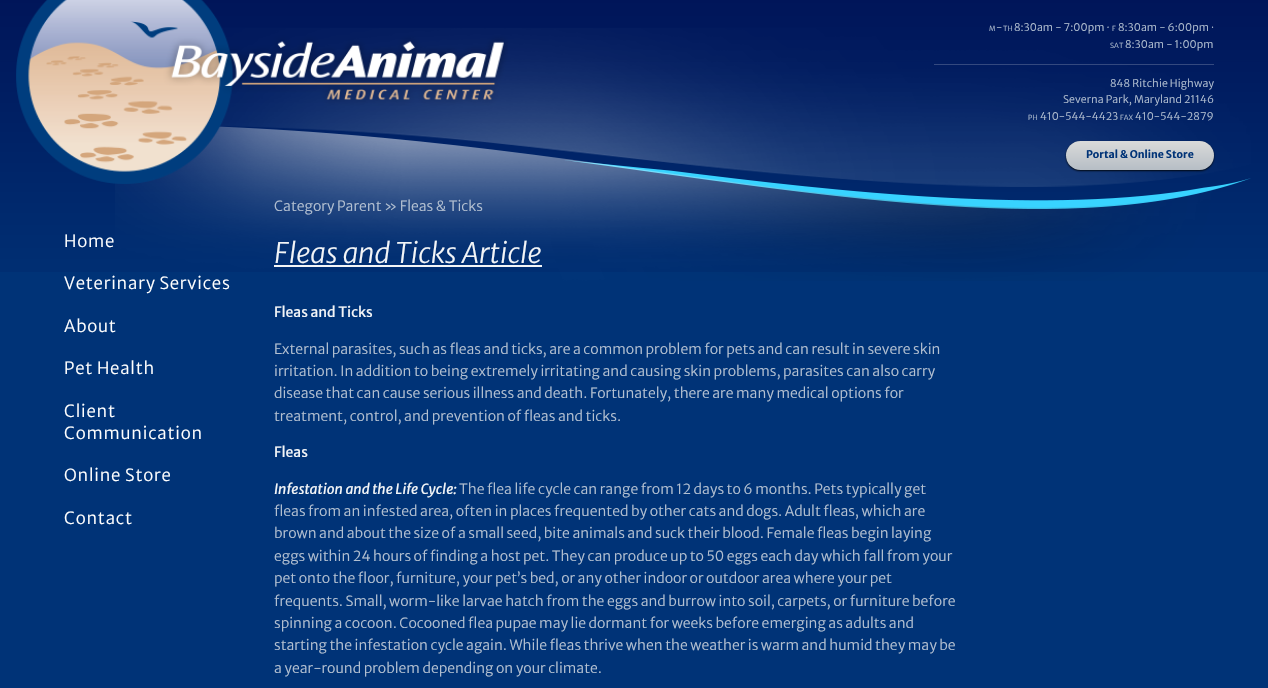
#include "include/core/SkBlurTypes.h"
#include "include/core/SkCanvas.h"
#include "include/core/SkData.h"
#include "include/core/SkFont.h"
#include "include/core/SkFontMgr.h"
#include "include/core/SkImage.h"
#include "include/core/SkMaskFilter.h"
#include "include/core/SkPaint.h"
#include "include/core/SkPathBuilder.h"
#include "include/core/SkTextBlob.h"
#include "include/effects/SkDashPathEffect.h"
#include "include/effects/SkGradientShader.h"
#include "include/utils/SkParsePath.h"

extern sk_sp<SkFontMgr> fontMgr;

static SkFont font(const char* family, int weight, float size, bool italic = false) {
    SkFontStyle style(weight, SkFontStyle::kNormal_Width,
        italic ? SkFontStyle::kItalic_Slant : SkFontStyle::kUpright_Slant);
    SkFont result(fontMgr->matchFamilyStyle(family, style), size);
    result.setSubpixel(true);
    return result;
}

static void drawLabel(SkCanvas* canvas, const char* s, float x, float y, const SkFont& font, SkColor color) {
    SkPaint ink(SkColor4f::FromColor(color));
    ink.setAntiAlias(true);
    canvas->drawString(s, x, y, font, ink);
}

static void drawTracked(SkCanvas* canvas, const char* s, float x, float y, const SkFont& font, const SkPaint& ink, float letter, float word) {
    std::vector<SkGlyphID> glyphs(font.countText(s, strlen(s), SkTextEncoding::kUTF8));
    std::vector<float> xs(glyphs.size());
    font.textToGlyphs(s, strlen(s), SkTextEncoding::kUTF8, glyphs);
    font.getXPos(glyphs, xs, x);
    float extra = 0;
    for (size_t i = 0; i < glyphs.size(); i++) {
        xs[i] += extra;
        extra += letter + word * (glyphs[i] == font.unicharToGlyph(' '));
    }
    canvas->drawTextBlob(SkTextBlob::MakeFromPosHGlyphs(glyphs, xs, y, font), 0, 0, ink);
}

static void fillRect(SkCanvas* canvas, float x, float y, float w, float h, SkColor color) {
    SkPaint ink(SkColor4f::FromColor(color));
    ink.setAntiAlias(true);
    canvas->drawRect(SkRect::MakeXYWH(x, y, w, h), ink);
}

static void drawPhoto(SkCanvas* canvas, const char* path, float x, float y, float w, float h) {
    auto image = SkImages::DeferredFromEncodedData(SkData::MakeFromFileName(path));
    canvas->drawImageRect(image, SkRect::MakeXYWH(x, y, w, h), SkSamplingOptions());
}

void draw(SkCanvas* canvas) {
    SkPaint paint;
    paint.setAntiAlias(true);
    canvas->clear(0xFF003377);
    drawPhoto(canvas, "assets/img1.png", 0, 0, 1268, 272);
    drawPhoto(canvas, "assets/img2.png", 115, 28, 1136, 253);
    drawPhoto(canvas, "assets/img3.png", 16, 0, 492, 184);
    fillRect(canvas, 934, 64, 280, 1, 0xFF34497F);
    SkFont font1 = font("Merriweather Sans", 300, 7);
    paint.setColor(0xFFB3C0D1);
    drawTracked(canvas, "M", 989, 31, font1, paint, 0.1f, 0);
    SkFont font2 = font("Merriweather Sans", 300, 10.5f);
    drawTracked(canvas, "-", 996, 31, font2, paint, 0.1f, 0);
    drawTracked(canvas, "TH", 1003, 31, font1, paint, 0.1f, 0);
    drawTracked(canvas, "8:30am - 7:00pm ·", 1014, 31, font2, paint, 0.1f, 0);
    drawTracked(canvas, "F", 1112, 31, font1, paint, 0.1f, 0);
    drawTracked(canvas, "8:30am - 6:00pm ·", 1118, 31, font2, paint, 0.1f, 0);
    drawTracked(canvas, "SAT", 1110, 48, font1, paint, 0.1f, 0);
    drawTracked(canvas, "8:30am - 1:00pm", 1125, 48, font2, paint, 0.1f, 0);
    drawTracked(canvas, "848 Ritchie Highway", 1110, 87, font2, paint, 0.1f, 0);
    drawTracked(canvas, "Severna Park, Maryland 21146", 1063, 103, font2, paint, 0.1f, 0);
    drawTracked(canvas, "PH", 1028, 120, font1, paint, 0.1f, 0);
    drawTracked(canvas, "410-544-4423", 1040, 120, font2, paint, 0.1f, 0);
    drawTracked(canvas, "FAX", 1120, 120, font1, paint, 0.1f, 0);
    drawTracked(canvas, "410-544-2879", 1135, 120, font2, paint, 0.1f, 0);
    paint.setColor(0xFF000711);
    paint.setMaskFilter(SkMaskFilter::MakeBlur(kNormal_SkBlurStyle, 1));
    canvas->drawRoundRect(SkRect::MakeXYWH(1066, 142, 148, 29), 14.5f, 14.5f, paint);
    paint.setMaskFilter(nullptr);
    {
        const SkColor colors[] = {0xFFDADADA, 0xFFB6BDC5};
        const float stops[] = {0, 1};
        const SkPoint ends[] = {{1140, 141}, {1140, 170}};
        paint.setShader(SkGradientShader::MakeLinear(ends, colors, stops, 2, SkTileMode::kClamp));
        paint.setAlpha(255);
    }
    canvas->drawRoundRect(SkRect::MakeXYWH(1066, 141, 148, 29), 14.5f, 14.5f, paint);
    SkFont font3 = font("Merriweather Sans", 700, 10.5f);
    drawLabel(canvas, "Portal & Online Store", 1086, 158, font3, 0xFF003377);
    SkFont font4 = font("Merriweather Sans", 300, 16.75f);
    paint.setShader(nullptr);
    paint.setColor(0xFFFFFFFF);
    drawTracked(canvas, "Home", 64, 247, font4, paint, 0.8f, 0);
    drawTracked(canvas, "Veterinary Services", 64, 289, font4, paint, 0.8f, 0);
    drawTracked(canvas, "About", 64, 332, font4, paint, 0.8f, 0);
    drawTracked(canvas, "Pet Health", 64, 374, font4, paint, 0.8f, 0);
    drawTracked(canvas, "Client", 64, 417, font4, paint, 0.8f, 0);
    drawTracked(canvas, "Communication", 64, 439, font4, paint, 0.8f, 0);
    drawTracked(canvas, "Online Store", 64, 481, font4, paint, 0.8f, 0);
    drawTracked(canvas, "Contact", 64, 524, font4, paint, 0.8f, 0);
    SkFont font5 = font("Merriweather Sans", 300, 14);
    drawLabel(canvas, "Category Parent » Fleas & Ticks", 274, 211, font5, 0xFFB3C0D1);
    SkFont font6 = font("Merriweather Sans", 300, 28, true);
    drawLabel(canvas, "Fleas and Ticks Article", 274, 263, font6, 0xFFF3F5F7);
    fillRect(canvas, 274, 265, 268, 2, 0xFFF3F5F7);
    SkFont font7 = font("Merriweather Sans", 400, 14);
    drawLabel(canvas, "Fleas and Ticks", 274, 317, font7, 0xFFF3F5F7);
    drawLabel(canvas, "External parasites, such as fleas and ticks, are a common problem for pets and can result in severe skin", 274, 354, font5, 0xFFB3C0D1);
    drawLabel(canvas, "irritation. In addition to being extremely irritating and causing skin problems, parasites can also carry", 274, 376, font5, 0xFFB3C0D1);
    drawLabel(canvas, "disease that can cause serious illness and death. Fortunately, there are many medical options for", 274, 398, font5, 0xFFB3C0D1);
    drawLabel(canvas, "treatment, control, and prevention of fleas and ticks.", 274, 421, font5, 0xFFB3C0D1);
    drawLabel(canvas, "Fleas", 274, 457, font7, 0xFFF3F5F7);
    SkFont font8 = font("Merriweather Sans", 400, 14, true);
    drawLabel(canvas, "Infestation and the Life Cycle:", 274, 494, font8, 0xFFF3F5F7);
    drawLabel(canvas, "The flea life cycle can range from 12 days to 6 months. Pets typically get", 459, 494, font5, 0xFFB3C0D1);
    drawLabel(canvas, "fleas from an infested area, often in places frequented by other cats and dogs. Adult fleas, which are", 274, 516, font5, 0xFFB3C0D1);
    drawLabel(canvas, "brown and about the size of a small seed, bite animals and suck their blood. Female fleas begin laying", 274, 538, font5, 0xFFB3C0D1);
    drawLabel(canvas, "eggs within 24 hours of finding a host pet. They can produce up to 50 eggs each day which fall from your", 274, 561, font5, 0xFFB3C0D1);
    drawLabel(canvas, "pet onto the floor, furniture, your pet’s bed, or any other indoor or outdoor area where your pet", 274, 583, font5, 0xFFB3C0D1);
    drawLabel(canvas, "frequents. Small, worm-like larvae hatch from the eggs and burrow into soil, carpets, or furniture before", 274, 606, font5, 0xFFB3C0D1);
    drawLabel(canvas, "spinning a cocoon. Cocooned flea pupae may lie dormant for weeks before emerging as adults and", 274, 628, font5, 0xFFB3C0D1);
    drawLabel(canvas, "starting the infestation cycle again. While fleas thrive when the weather is warm and humid they may be", 274, 650, font5, 0xFFB3C0D1);
    drawLabel(canvas, "a year-round problem depending on your climate.", 274, 673, font5, 0xFFB3C0D1);
}
